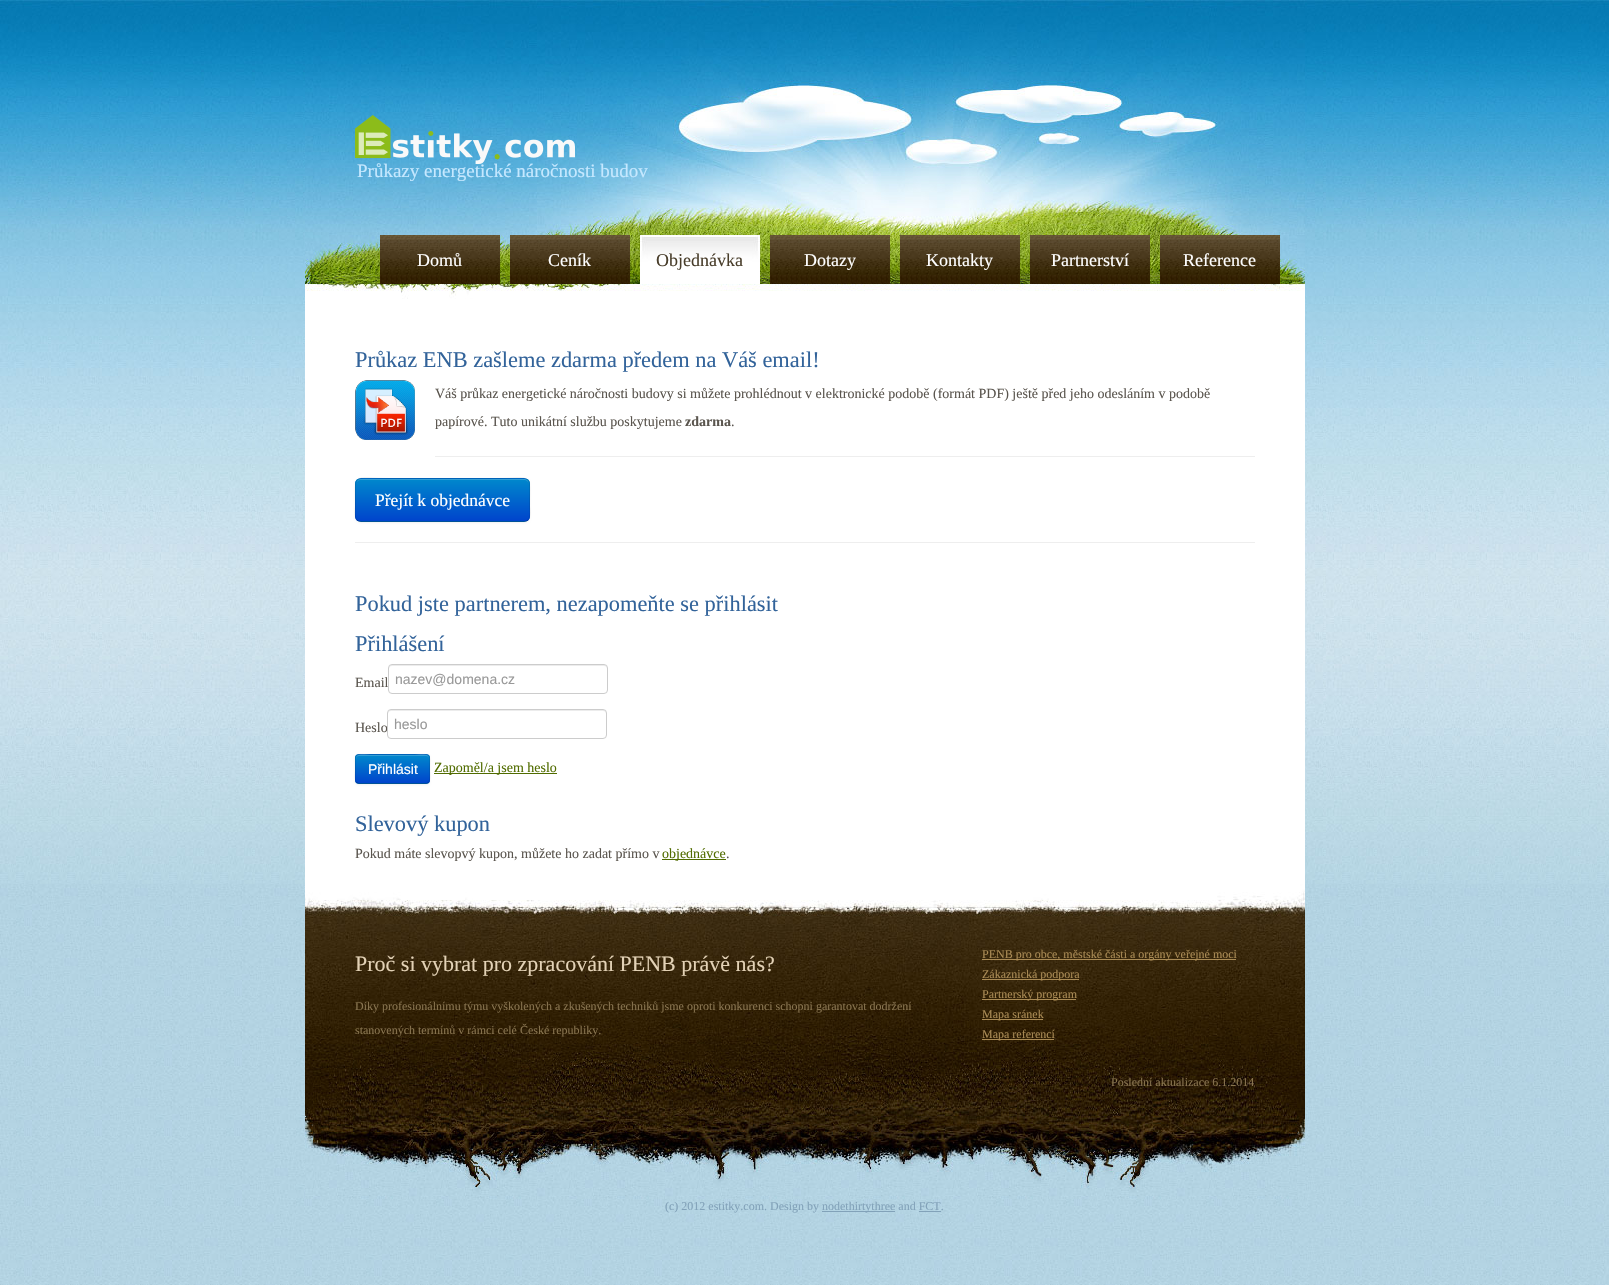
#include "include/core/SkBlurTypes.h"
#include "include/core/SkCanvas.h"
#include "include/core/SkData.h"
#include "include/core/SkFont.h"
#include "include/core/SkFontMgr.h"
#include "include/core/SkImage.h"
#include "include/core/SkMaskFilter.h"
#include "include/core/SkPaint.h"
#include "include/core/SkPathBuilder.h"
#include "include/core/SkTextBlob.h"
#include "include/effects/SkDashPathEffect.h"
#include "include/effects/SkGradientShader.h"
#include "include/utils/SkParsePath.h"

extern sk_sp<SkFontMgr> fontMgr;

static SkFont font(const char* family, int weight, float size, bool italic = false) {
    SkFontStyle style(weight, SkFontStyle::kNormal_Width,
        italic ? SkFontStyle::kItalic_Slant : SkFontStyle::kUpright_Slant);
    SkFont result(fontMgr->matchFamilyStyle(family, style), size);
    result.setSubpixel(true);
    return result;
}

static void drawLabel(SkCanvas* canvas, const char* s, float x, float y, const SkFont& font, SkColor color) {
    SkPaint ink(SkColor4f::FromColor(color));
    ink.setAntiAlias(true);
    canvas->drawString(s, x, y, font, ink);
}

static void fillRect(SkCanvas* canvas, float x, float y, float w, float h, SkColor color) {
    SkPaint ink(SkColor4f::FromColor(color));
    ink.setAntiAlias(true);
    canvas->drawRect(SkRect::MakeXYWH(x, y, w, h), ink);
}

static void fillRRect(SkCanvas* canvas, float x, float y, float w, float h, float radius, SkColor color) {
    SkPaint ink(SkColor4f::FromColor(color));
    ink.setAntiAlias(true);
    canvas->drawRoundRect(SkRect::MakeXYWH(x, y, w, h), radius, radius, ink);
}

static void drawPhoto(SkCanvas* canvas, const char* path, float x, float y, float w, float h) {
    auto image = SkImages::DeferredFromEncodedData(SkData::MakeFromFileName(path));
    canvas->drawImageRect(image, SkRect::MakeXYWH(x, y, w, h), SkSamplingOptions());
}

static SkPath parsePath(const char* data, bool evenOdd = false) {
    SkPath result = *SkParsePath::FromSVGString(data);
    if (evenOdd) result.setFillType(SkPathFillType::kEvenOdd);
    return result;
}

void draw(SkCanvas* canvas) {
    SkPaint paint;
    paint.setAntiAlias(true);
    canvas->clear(0xFFFFFFFF);
    drawPhoto(canvas, "assets/img1.png", 0, 884, 1609, 401);
    drawPhoto(canvas, "assets/img2.png", 0, 0, 1609, 884);
    drawPhoto(canvas, "assets/img3.png", 305, 0, 1000, 235);
    drawPhoto(canvas, "assets/img4.png", 355, 115, 220, 49);
    SkFont font1 = font("Liberation Serif", 400, 19);
    drawLabel(canvas, "Průkazy energetické náročnosti budov", 357, 177, font1, 0xFFC5E8FF);
    drawPhoto(canvas, "assets/img5.png", 305, 235, 1000, 65);
    drawPhoto(canvas, "assets/img6.png", 380, 235, 120, 49);
    SkFont font2 = font("Liberation Serif", 400, 18);
    drawLabel(canvas, "Domů", 417, 266, font2, 0xFFFFFFFF);
    drawPhoto(canvas, "assets/img6.png", 510, 235, 120, 49);
    drawLabel(canvas, "Ceník", 548, 266, font2, 0xFFFFFFFF);
    drawPhoto(canvas, "assets/img7.png", 640, 235, 120, 49);
    drawLabel(canvas, "Objednávka", 656, 266, font2, 0xFF493E2B);
    drawPhoto(canvas, "assets/img6.png", 770, 235, 120, 49);
    drawLabel(canvas, "Dotazy", 804, 266, font2, 0xFFFFFFFF);
    drawPhoto(canvas, "assets/img6.png", 900, 235, 120, 49);
    drawLabel(canvas, "Kontakty", 926, 266, font2, 0xFFFFFFFF);
    drawPhoto(canvas, "assets/img6.png", 1030, 235, 120, 49);
    drawLabel(canvas, "Partnerství", 1051, 266, font2, 0xFFFFFFFF);
    drawPhoto(canvas, "assets/img6.png", 1160, 235, 120, 49);
    drawLabel(canvas, "Reference", 1183, 266, font2, 0xFFFFFFFF);
    fillRect(canvas, 305, 300, 1000, 584, 0xFFFFFFFF);
    SkFont font3 = font("Liberation Serif", 400, 22.4f);
    drawLabel(canvas, "Průkaz ENB zašleme zdarma předem na Váš email!", 355, 367, font3, 0xFF32639A);
    drawPhoto(canvas, "assets/img8.png", 355, 380, 60, 60);
    SkFont font4 = font("Liberation Serif", 400, 14);
    drawLabel(canvas, "Váš průkaz energetické náročnosti budovy si můžete prohlédnout v elektronické podobě (formát PDF) ještě před jeho odesláním v podobě", 435, 398, font4, 0xFF5A554E);
    drawLabel(canvas, "papírové. Tuto unikátní službu poskytujeme", 435, 426, font4, 0xFF5A554E);
    SkFont font5 = font("Liberation Serif", 700, 14);
    drawLabel(canvas, "zdarma", 685, 426, font5, 0xFF5A554E);
    drawLabel(canvas, ".", 731, 426, font4, 0xFF5A554E);
    fillRect(canvas, 435, 456, 820, 1, 0xFFEEEEEE);
    paint.setColor(0x0D000000);
    paint.setMaskFilter(SkMaskFilter::MakeBlur(kNormal_SkBlurStyle, 1));
    canvas->drawRoundRect(SkRect::MakeXYWH(355, 479, 175, 44), 6, 6, paint);
    paint.setMaskFilter(nullptr);
    fillRRect(canvas, 355, 478, 175, 44, 6, 0xFF006DCC);
    canvas->save();
    canvas->clipPath(parsePath("M361 478H524C527.5 478 530 480.5 530 484V516C530 519.5 527.5 522 524 522H361C357.5 522 355 519.5 355 516V484C355 480.5 357.5 478 361 478Z"), true);
    {
        const SkColor colors[] = {0xFF0088CC, 0xFF0044CC};
        const float stops[] = {0, 1};
        const SkPoint ends[] = {{443, 479}, {443, 521}};
        paint.setShader(SkGradientShader::MakeLinear(ends, colors, stops, 2, SkTileMode::kClamp));
        paint.setAlpha(255);
    }
    canvas->drawRect(SkRect::MakeXYWH(355, 479, 175, 42), paint);
    canvas->restore();
    paint.setShader(nullptr);
    paint.setColor(0xFF339FD6);
    canvas->drawPath(parsePath("M361 480H524C527 480 529 482 529 485C529 482 528 480 525 479H361C358 479 356 482 356 485C356 482 358 480 361 480Z"), paint);
    paint.setStroke(true);
    paint.setStrokeWidth(1);
    paint.setColor(0x40000000);
    canvas->drawPath(parsePath("M528 520C527 521 525.5 521.5 524 521.5H361C359.5 521.5 358 521 357 520"), paint);
    paint.setColor(0x1A000000);
    canvas->drawPath(parsePath("M357 520C354 516.5 355.5 509 355.5 505.5C355.5 472 351 478.5 388 478.5H497C534 478.5 529.5 472 529.5 505.5C529.5 509 531 516.5 528 520"), paint);
    SkFont font6 = font("Liberation Serif", 400, 17.5f);
    drawLabel(canvas, "Přejít k objednávce", 375, 506, font6, 0xFFFFFFFF);
    fillRect(canvas, 355, 542, 900, 1, 0xFFEEEEEE);
    drawLabel(canvas, "Pokud jste partnerem, nezapomeňte se přihlásit", 355, 611, font3, 0xFF32639A);
    drawLabel(canvas, "Přihlášení", 355, 651, font3, 0xFF32639A);
    drawLabel(canvas, "Email", 355, 687, font4, 0xFF5A554E);
    paint.setStroke(false);
    paint.setColor(0xFFECECEC);
    canvas->drawPath(parsePath("M392 666H604C606 666 607 667 607 669V668C607 666 606 665 604 665H392C390 665 389 666 389 668V669C389 667 390 666 392 666Z"), paint);
    paint.setStroke(true);
    paint.setColor(0xFFCCCCCC);
    canvas->drawRoundRect(SkRect::MakeXYWH(388.5f, 664.5f, 219, 29), 3.5f, 3.5f, paint);
    SkFont font7 = font("Liberation Sans", 400, 14);
    drawLabel(canvas, "nazev@domena.cz", 395, 684, font7, 0xFF999999);
    drawLabel(canvas, "Heslo", 355, 732, font4, 0xFF5A554E);
    paint.setStroke(false);
    paint.setColor(0xFFECECEC);
    canvas->drawPath(parsePath("M391 711H603C605 711 606 712 606 714V713C606 711 605 710 603 710H391C389 710 388 711 388 713V714C388 712 389 711 391 711Z"), paint);
    paint.setStroke(true);
    paint.setColor(0xFFCCCCCC);
    canvas->drawRoundRect(SkRect::MakeXYWH(387.5f, 709.5f, 219, 29), 3.5f, 3.5f, paint);
    drawLabel(canvas, "heslo", 394, 729, font7, 0xFF999999);
    paint.setStroke(false);
    paint.setColor(0x0D000000);
    paint.setMaskFilter(SkMaskFilter::MakeBlur(kNormal_SkBlurStyle, 1));
    canvas->drawRoundRect(SkRect::MakeXYWH(355, 755, 75, 30), 4, 4, paint);
    paint.setMaskFilter(nullptr);
    fillRRect(canvas, 355, 754, 75, 30, 4, 0xFF006DCC);
    canvas->save();
    canvas->clipPath(parsePath("M359 754H426C428 754 430 756 430 758V780C430 782 428 784 426 784H359C357 784 355 782 355 780V758C355 756 357 754 359 754Z"), true);
    {
        const SkColor colors[] = {0xFF0088CC, 0xFF0044CC};
        const float stops[] = {0, 1};
        const SkPoint ends[] = {{393, 755}, {393, 783}};
        paint.setShader(SkGradientShader::MakeLinear(ends, colors, stops, 2, SkTileMode::kClamp));
        paint.setAlpha(255);
    }
    canvas->drawRect(SkRect::MakeXYWH(355, 755, 75, 28), paint);
    canvas->restore();
    paint.setShader(nullptr);
    paint.setColor(0x33FFFFFF);
    canvas->drawPath(parsePath("M359 756H426C428 756 429 757 429 759C429 752 419 755 415 755H370C366 755 356 752 356 759C356 757 357 756 359 756Z"), paint);
    paint.setStroke(true);
    paint.setColor(0x40000000);
    canvas->drawPath(parsePath("M428.5 782.5L426.5 783.5H358.5L356.5 782.5"), paint);
    paint.setColor(0x1A000000);
    canvas->drawPath(parsePath("M356.5 782.5C354.5 780.5 355.5 772 355.5 769C355.5 752.5 353 754.5 370 754.5H415C432 754.5 429.5 752.5 429.5 769C429.5 772 430.5 780.5 428.5 782.5"), paint);
    drawLabel(canvas, "Přihlásit", 368, 774, font7, 0xFFFFFFFF);
    fillRect(canvas, 434, 773, 123, 1, 0xFF516C00);
    drawLabel(canvas, "Zapoměl/a jsem heslo", 434, 772, font4, 0xFF516C00);
    drawLabel(canvas, "Slevový kupon", 355, 831, font3, 0xFF32639A);
    drawLabel(canvas, "Pokud máte slevopvý kupon, můžete ho zadat přímo v", 355, 858, font4, 0xFF5A554E);
    fillRect(canvas, 662, 859, 64, 1, 0xFF516C00);
    drawLabel(canvas, "objednávce", 662, 858, font4, 0xFF516C00);
    drawLabel(canvas, ".", 726, 858, font4, 0xFF5A554E);
    drawPhoto(canvas, "assets/img9.png", 305, 884, 1000, 315);
    SkFont font8 = font("Liberation Serif", 400, 22);
    drawLabel(canvas, "Proč si vybrat pro zpracování PENB právě nás?", 355, 971, font8, 0xFFE3D2B6);
    SkFont font9 = font("Liberation Serif", 400, 12);
    drawLabel(canvas, "Díky profesionálnímu týmu vyškolených a zkušených techniků jsme oproti konkurenci schopni garantovat dodržení", 355, 1010, font9, 0xFF887450);
    drawLabel(canvas, "stanovených termínů v rámci celé České republiky.", 355, 1034, font9, 0xFF887450);
    fillRect(canvas, 982, 959, 254, 1, 0xFFAA8B55);
    drawLabel(canvas, "PENB pro obce, městské části a orgány veřejné moci", 982, 958, font9, 0xFFAA8B55);
    fillRect(canvas, 982, 979, 97, 1, 0xFFAA8B55);
    drawLabel(canvas, "Zákaznická podpora", 982, 978, font9, 0xFFAA8B55);
    fillRect(canvas, 982, 999, 94, 1, 0xFFAA8B55);
    drawLabel(canvas, "Partnerský program", 982, 998, font9, 0xFFAA8B55);
    fillRect(canvas, 982, 1019, 61, 1, 0xFFAA8B55);
    drawLabel(canvas, "Mapa sránek", 982, 1018, font9, 0xFFAA8B55);
    fillRect(canvas, 982, 1039, 72, 1, 0xFFAA8B55);
    drawLabel(canvas, "Mapa referencí", 982, 1038, font9, 0xFFAA8B55);
    drawLabel(canvas, "Poslední aktualizace 6.1.2014", 1111, 1086, font9, 0xFF887450);
    drawLabel(canvas, "(c) 2012 estitky.com. Design by", 665, 1210, font9, 0xFF82A2B9);
    fillRect(canvas, 822, 1211, 73, 1, 0xFF82A2B9);
    drawLabel(canvas, "nodethirtythree and FCT.", 822, 1210, font9, 0xFF82A2B9);
    fillRect(canvas, 919, 1211, 22, 1, 0xFF82A2B9);
}
